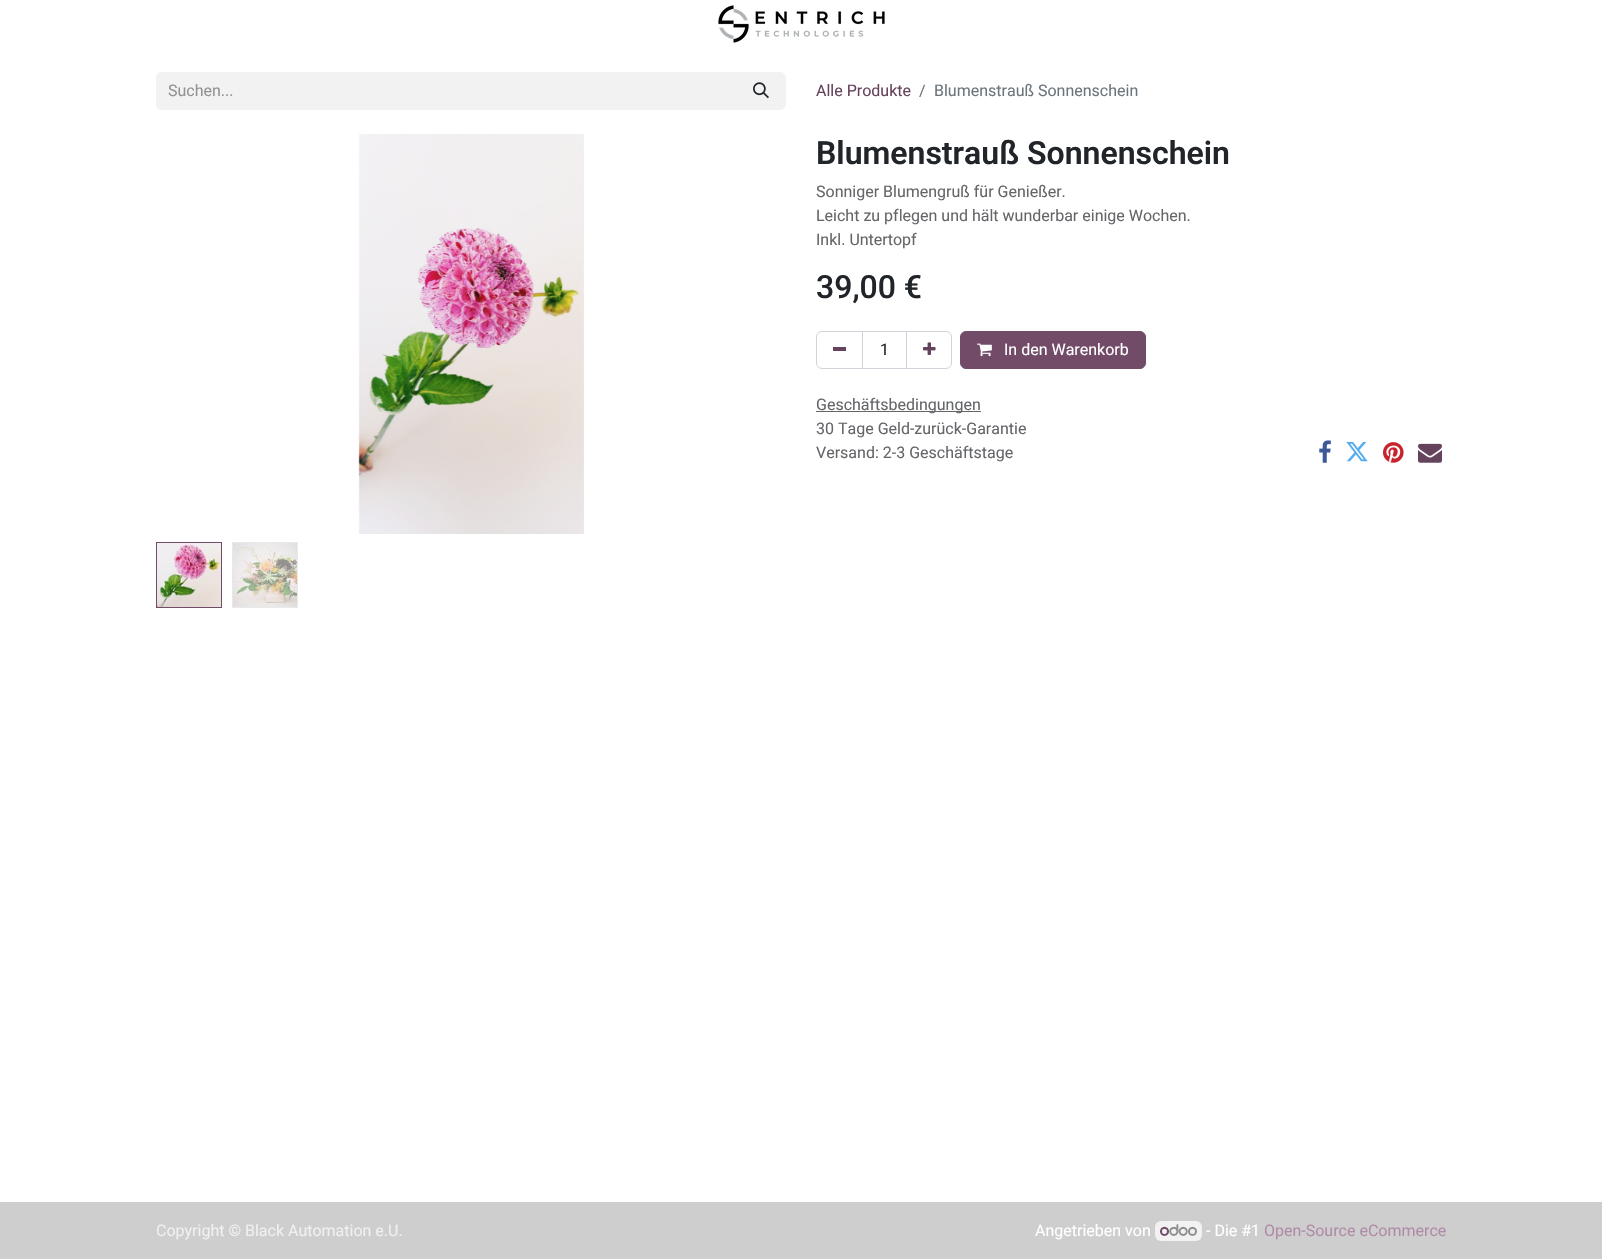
#include "include/core/SkBlurTypes.h"
#include "include/core/SkCanvas.h"
#include "include/core/SkData.h"
#include "include/core/SkFont.h"
#include "include/core/SkFontMgr.h"
#include "include/core/SkImage.h"
#include "include/core/SkMaskFilter.h"
#include "include/core/SkPaint.h"
#include "include/core/SkPathBuilder.h"
#include "include/core/SkTextBlob.h"
#include "include/effects/SkDashPathEffect.h"
#include "include/effects/SkGradientShader.h"
#include "include/utils/SkParsePath.h"

extern sk_sp<SkFontMgr> fontMgr;

static SkFont font(const char* family, int weight, float size, bool italic = false) {
    SkFontStyle style(weight, SkFontStyle::kNormal_Width,
        italic ? SkFontStyle::kItalic_Slant : SkFontStyle::kUpright_Slant);
    SkFont result(fontMgr->matchFamilyStyle(family, style), size);
    result.setSubpixel(true);
    return result;
}

static void drawLabel(SkCanvas* canvas, const char* s, float x, float y, const SkFont& font, SkColor color) {
    SkPaint ink(SkColor4f::FromColor(color));
    ink.setAntiAlias(true);
    canvas->drawString(s, x, y, font, ink);
}

static void fillRect(SkCanvas* canvas, float x, float y, float w, float h, SkColor color) {
    SkPaint ink(SkColor4f::FromColor(color));
    ink.setAntiAlias(true);
    canvas->drawRect(SkRect::MakeXYWH(x, y, w, h), ink);
}

static void fillRRect(SkCanvas* canvas, float x, float y, float w, float h, float radius, SkColor color) {
    SkPaint ink(SkColor4f::FromColor(color));
    ink.setAntiAlias(true);
    canvas->drawRoundRect(SkRect::MakeXYWH(x, y, w, h), radius, radius, ink);
}

static void drawPhoto(SkCanvas* canvas, const char* path, float x, float y, float w, float h) {
    auto image = SkImages::DeferredFromEncodedData(SkData::MakeFromFileName(path));
    canvas->drawImageRect(image, SkRect::MakeXYWH(x, y, w, h), SkSamplingOptions());
}

static SkPath parsePath(const char* data, bool evenOdd = false) {
    SkPath result = *SkParsePath::FromSVGString(data);
    if (evenOdd) result.setFillType(SkPathFillType::kEvenOdd);
    return result;
}

void draw(SkCanvas* canvas) {
    SkPaint paint;
    paint.setAntiAlias(true);
    canvas->clear(0xFFFFFFFF);
    drawPhoto(canvas, "assets/img1.png", 718, 5, 167, 38);
    paint.setColor(0xFFF3F2F2);
    canvas->drawPath(parsePath("M162 72H737V110H162C158.5 110 156 107.5 156 104V78C156 74.5 158.5 72 162 72Z"), paint);
    SkFont font1 = font("Roboto", 400, 16);
    drawLabel(canvas, "Suchen...", 168, 96, font1, 0xFF909294);
    canvas->drawPath(parsePath("M736.5 72.5H780C783 72.5 785.5 75 785.5 78V104C785.5 107 783 109.5 780 109.5H736.5Z"), paint);
    paint.setStroke(true);
    paint.setStrokeWidth(1);
    canvas->drawPath(parsePath("M736.5 72.5H780C783 72.5 785.5 75 785.5 78V104C785.5 107 783 109.5 780 109.5H736.5Z"), paint);
    drawPhoto(canvas, "assets/img2.png", 753, 82, 16, 17);
    drawLabel(canvas, "Alle Produkte", 816, 96, font1, 0xFF65435C);
    drawLabel(canvas, "/", 919, 96, font1, 0xFF6C757D);
    drawLabel(canvas, "Blumenstrauß Sonnenschein", 934, 96, font1, 0xFF6C757D);
    drawPhoto(canvas, "assets/img3.png", 358, 134, 226, 400);
    paint.setColor(0xFF714B67);
    canvas->drawRect(SkRect::MakeXYWH(156.5f, 542.5f, 65, 65), paint);
    drawPhoto(canvas, "assets/img4.png", 157, 543, 64, 64);
    paint.setColor(0xFFE7EAED);
    canvas->drawRect(SkRect::MakeXYWH(232.5f, 542.5f, 65, 65), paint);
    drawPhoto(canvas, "assets/img5.png", 233, 543, 64, 64);
    SkFont font2 = font("Roboto", 600, 32);
    drawLabel(canvas, "Blumenstrauß Sonnenschein", 816, 164, font2, 0xFF212529);
    drawLabel(canvas, "Sonniger Blumengruß für Genießer.", 816, 197, font1, 0xFF646669);
    drawLabel(canvas, "Leicht zu pflegen und hält wunderbar einige Wochen.", 816, 221, font1, 0xFF646669);
    drawLabel(canvas, "Inkl. Untertopf", 816, 245, font1, 0xFF646669);
    SkFont font3 = font("Roboto", 500, 32);
    drawLabel(canvas, "39,00 €", 816, 298, font3, 0xFF212529);
    paint.setColor(0xFFCED4DA);
    canvas->drawRect(SkRect::MakeXYWH(862.5f, 331.5f, 44, 37), paint);
    canvas->drawPath(parsePath("M822 331.5H862.5V368.5H822C819 368.5 816.5 366 816.5 363V337C816.5 334 819 331.5 822 331.5Z"), paint);
    fillRect(canvas, 833, 347, 13, 4, 0xFF65435C);
    drawLabel(canvas, "1", 880, 355, font1, 0xFF212529);
    canvas->drawPath(parsePath("M906.5 331.5H946C949 331.5 951.5 334 951.5 337V363C951.5 366 949 368.5 946 368.5H906.5Z"), paint);
    drawPhoto(canvas, "assets/img6.png", 923, 342, 13, 13);
    paint.setStroke(false);
    paint.setColor(0xFF714B67);
    canvas->drawRoundRect(SkRect::MakeXYWH(960.5f, 331.5f, 185, 37), 5.5f, 5.5f, paint);
    paint.setStroke(true);
    canvas->drawRoundRect(SkRect::MakeXYWH(960.5f, 331.5f, 185, 37), 5.5f, 5.5f, paint);
    drawPhoto(canvas, "assets/img7.png", 977, 343, 15, 14);
    drawLabel(canvas, "In den Warenkorb", 1004, 355, font1, 0xFFFFFFFF);
    fillRect(canvas, 816, 411, 165, 1, 0xFF646669);
    drawLabel(canvas, "Geschäftsbedingungen", 816, 410, font1, 0xFF646669);
    drawLabel(canvas, "30 Tage Geld-zurück-Garantie", 816, 434, font1, 0xFF646669);
    drawLabel(canvas, "Versand: 2-3 Geschäftstage", 816, 458, font1, 0xFF646669);
    drawPhoto(canvas, "assets/img8.png", 1319, 440, 12, 23);
    drawPhoto(canvas, "assets/img9.png", 1346, 441, 22, 21);
    drawPhoto(canvas, "assets/img10.png", 1383, 442, 21, 21);
    drawPhoto(canvas, "assets/img11.png", 1418, 443, 24, 20);
    fillRect(canvas, 0, 1202, 1602, 57, 0xFFCFCECE);
    drawLabel(canvas, "Copyright © Black Automation e.U.", 156, 1236, font1, 0xFFF1F0F0);
    drawLabel(canvas, "Angetrieben von", 1035, 1236, font1, 0xFFFFFFFF);
    fillRRect(canvas, 1155, 1221, 47, 20, 6, 0xFFF3F2F2);
    drawPhoto(canvas, "assets/img12.png", 1160, 1224, 37, 12);
    drawLabel(canvas, "- Die #1", 1206, 1236, font1, 0xFFFFFFFF);
    drawLabel(canvas, "Open-Source eCommerce", 1264, 1236, font1, 0xFFB18AA7);
}
